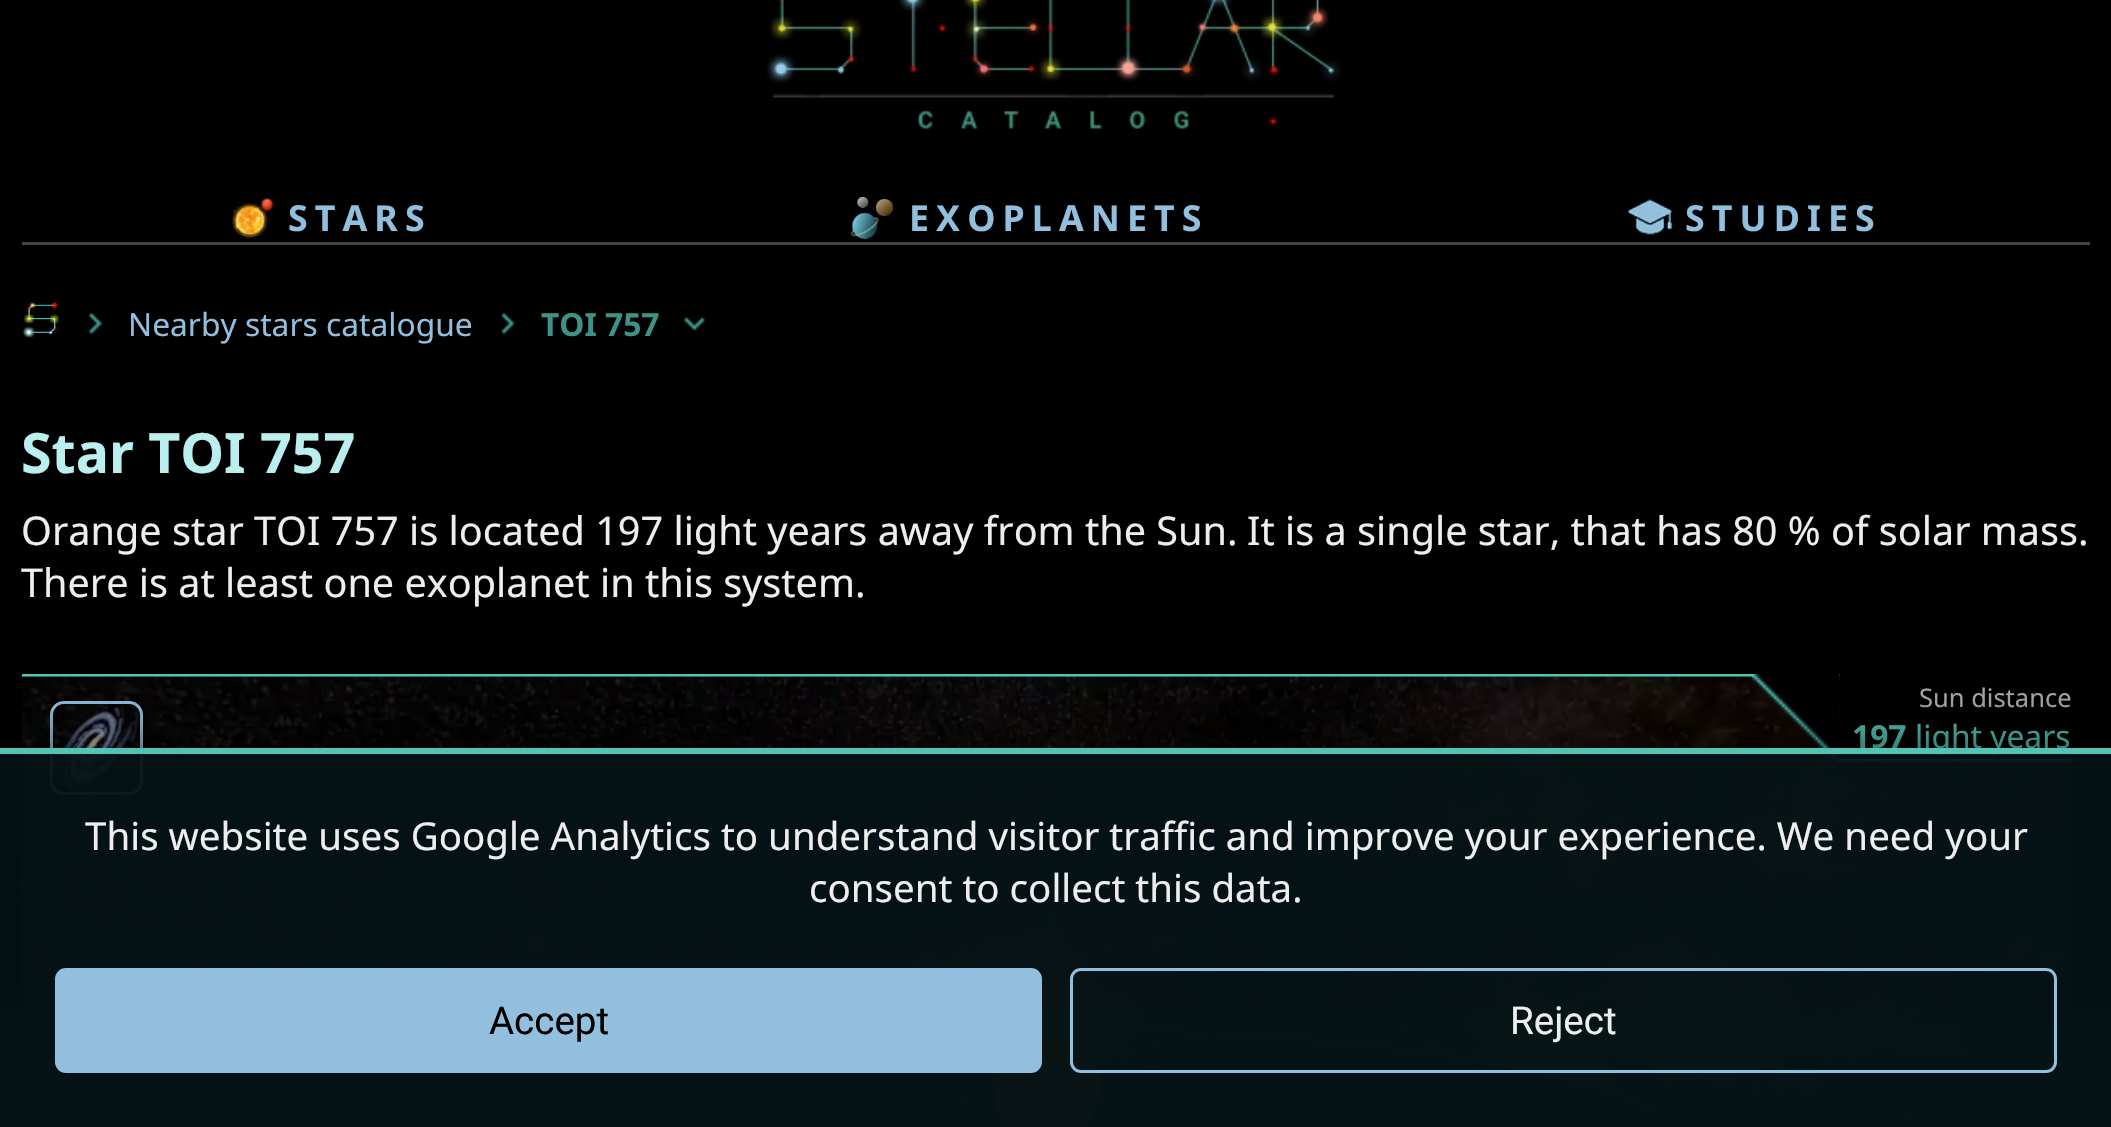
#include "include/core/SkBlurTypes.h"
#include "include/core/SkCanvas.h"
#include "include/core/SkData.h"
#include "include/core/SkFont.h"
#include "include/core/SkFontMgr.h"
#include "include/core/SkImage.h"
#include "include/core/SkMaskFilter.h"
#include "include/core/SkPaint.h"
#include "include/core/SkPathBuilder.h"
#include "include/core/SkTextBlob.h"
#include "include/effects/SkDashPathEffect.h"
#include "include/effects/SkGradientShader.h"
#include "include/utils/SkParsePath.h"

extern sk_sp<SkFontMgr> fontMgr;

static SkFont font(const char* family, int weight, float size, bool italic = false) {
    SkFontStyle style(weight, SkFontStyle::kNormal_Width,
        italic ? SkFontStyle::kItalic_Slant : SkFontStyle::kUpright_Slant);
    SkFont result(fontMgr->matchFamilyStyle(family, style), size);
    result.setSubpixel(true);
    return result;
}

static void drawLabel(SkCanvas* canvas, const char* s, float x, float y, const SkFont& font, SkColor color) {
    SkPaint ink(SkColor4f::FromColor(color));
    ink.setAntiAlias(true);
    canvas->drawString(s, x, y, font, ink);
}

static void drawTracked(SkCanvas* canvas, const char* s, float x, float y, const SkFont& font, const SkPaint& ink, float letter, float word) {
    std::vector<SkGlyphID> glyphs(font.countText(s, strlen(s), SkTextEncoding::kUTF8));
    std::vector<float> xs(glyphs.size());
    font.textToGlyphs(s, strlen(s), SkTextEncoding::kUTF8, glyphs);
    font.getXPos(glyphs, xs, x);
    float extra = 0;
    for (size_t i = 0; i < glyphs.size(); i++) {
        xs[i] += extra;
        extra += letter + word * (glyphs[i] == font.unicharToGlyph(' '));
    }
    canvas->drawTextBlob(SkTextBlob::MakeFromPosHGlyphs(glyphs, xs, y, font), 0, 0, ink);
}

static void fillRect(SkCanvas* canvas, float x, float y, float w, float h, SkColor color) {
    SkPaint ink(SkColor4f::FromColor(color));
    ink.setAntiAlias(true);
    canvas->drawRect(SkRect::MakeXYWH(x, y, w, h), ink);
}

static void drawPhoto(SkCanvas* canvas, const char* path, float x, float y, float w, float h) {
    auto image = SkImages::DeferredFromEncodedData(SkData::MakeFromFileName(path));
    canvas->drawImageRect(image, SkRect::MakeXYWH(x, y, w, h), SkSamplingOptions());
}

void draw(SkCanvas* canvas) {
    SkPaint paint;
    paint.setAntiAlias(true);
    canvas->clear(0xFF000000);
    drawPhoto(canvas, "assets/img1.png", 766, 0, 575, 129);
    fillRect(canvas, 22, 242, 2068, 3, 0xFF444444);
    drawPhoto(canvas, "assets/img2.png", 231, 198, 43, 41);
    SkFont font1 = font("Noto Sans", 700, 35.75f);
    paint.setColor(0xFF93BFDE);
    drawTracked(canvas, "STARS", 288, 231, font1, paint, 7.1f, 0);
    drawPhoto(canvas, "assets/img3.png", 850, 197, 43, 43);
    drawTracked(canvas, "EXOPLANETS", 909, 231, font1, paint, 7.1f, 0);
    drawPhoto(canvas, "assets/img4.png", 1628, 199, 44, 36);
    drawTracked(canvas, "STUDIES", 1685, 231, font1, paint, 7.1f, 0);
    drawPhoto(canvas, "assets/img5.png", 22, 300, 39, 39);
    drawPhoto(canvas, "assets/img6.png", 87, 312, 16, 23);
    SkFont font2 = font("Noto Sans", 400, 31.75f);
    drawLabel(canvas, "Nearby stars catalogue", 128, 336, font2, 0xFF93BFDE);
    drawPhoto(canvas, "assets/img7.png", 500, 312, 15, 23);
    SkFont font3 = font("Noto Sans", 700, 31.75f);
    drawLabel(canvas, "TOI 757", 541, 336, font3, 0xFF3D9387);
    drawPhoto(canvas, "assets/img8.png", 683, 316, 23, 15);
    SkFont font4 = font("Noto Sans", 700, 55.5f);
    drawLabel(canvas, "Star TOI 757", 21, 473, font4, 0xFFBBEEEE);
    SkFont font5 = font("Noto Sans", 400, 39.6f);
    drawLabel(canvas, "Orange star TOI 757 is located 197 light years away from the Sun.", 21, 545, font5, 0xFFEEEEEE);
    drawLabel(canvas, "It is a single star, that has 80 % of solar mass.", 1247, 545, font5, 0xFFEEEEEE);
    drawLabel(canvas, "There is at least one exoplanet in this system.", 21, 597, font5, 0xFFEEEEEE);
    fillRect(canvas, 22, 674, 1818, 3, 0xFF51C4B4);
    drawPhoto(canvas, "assets/img9.png", 22, 676, 2049, 451);
    paint.setStroke(true);
    paint.setStrokeWidth(3);
    canvas->drawRoundRect(SkRect::MakeXYWH(51.5f, 702.5f, 90, 91), 12.5f, 12.5f, paint);
    drawPhoto(canvas, "assets/img10.png", 54, 705, 85, 86);
    drawPhoto(canvas, "assets/img11.png", 1751, 674, 89, 88);
    fillRect(canvas, 1840, 676, 231, 83, 0xFF000000);
    fillRect(canvas, 1840, 759, 231, 3, 0xFF51C4B4);
    SkFont font6 = font("Noto Sans", 400, 25.5f);
    drawLabel(canvas, "Sun distance", 1919, 707, font6, 0xFFA8A8A8);
    drawLabel(canvas, "197", 1852, 748, font3, 0xFF51C4B4);
    drawLabel(canvas, "light years", 1915, 748, font2, 0xFF51C4B4);
    canvas->save();
    canvas->clipRect(SkRect::MakeXYWH(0, 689, 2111, 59));
    paint.setStroke(false);
    paint.setColor(0x80000000);
    paint.setMaskFilter(SkMaskFilter::MakeBlur(kNormal_SkBlurStyle, 27.5f));
    canvas->drawRect(SkRect::MakeXYWH(0, 737, 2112, 380), paint);
    paint.setMaskFilter(nullptr);
    canvas->restore();
    {
        const SkColor colors[] = {0xF2041215, 0xFA041215};
        const float stops[] = {0, 1};
        const SkPoint ends[] = {{1056, 753}, {1056, 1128}};
        paint.setShader(SkGradientShader::MakeLinear(ends, colors, stops, 2, SkTileMode::kClamp));
        paint.setAlpha(255);
    }
    canvas->drawRect(SkRect::MakeXYWH(0, 754, 2111, 373), paint);
    fillRect(canvas, 0, 748, 2111, 6, 0xFF51C4B4);
    SkFont font7 = font("Noto Sans", 400, 38.5f);
    drawLabel(canvas, "This website uses Google Analytics to understand visitor traffic and improve your experience. We need your", 85, 850, font7, 0xFFEEEEEE);
    drawLabel(canvas, "consent to collect this data.", 809, 902, font7, 0xFFEEEEEE);
    paint.setShader(nullptr);
    paint.setColor(0xFF93BFDE);
    canvas->drawRoundRect(SkRect::MakeXYWH(56.5f, 969.5f, 984, 102), 9.5f, 9.5f, paint);
    paint.setStroke(true);
    canvas->drawRoundRect(SkRect::MakeXYWH(56.5f, 969.5f, 984, 102), 9.5f, 9.5f, paint);
    SkFont font8 = font("Roboto", 400, 38.5f);
    drawLabel(canvas, "Accept", 489, 1034, font8, 0xFF000000);
    canvas->drawRoundRect(SkRect::MakeXYWH(1071.5f, 969.5f, 984, 102), 9.5f, 9.5f, paint);
    drawLabel(canvas, "Reject", 1510, 1034, font8, 0xFFEEEEEE);
}
